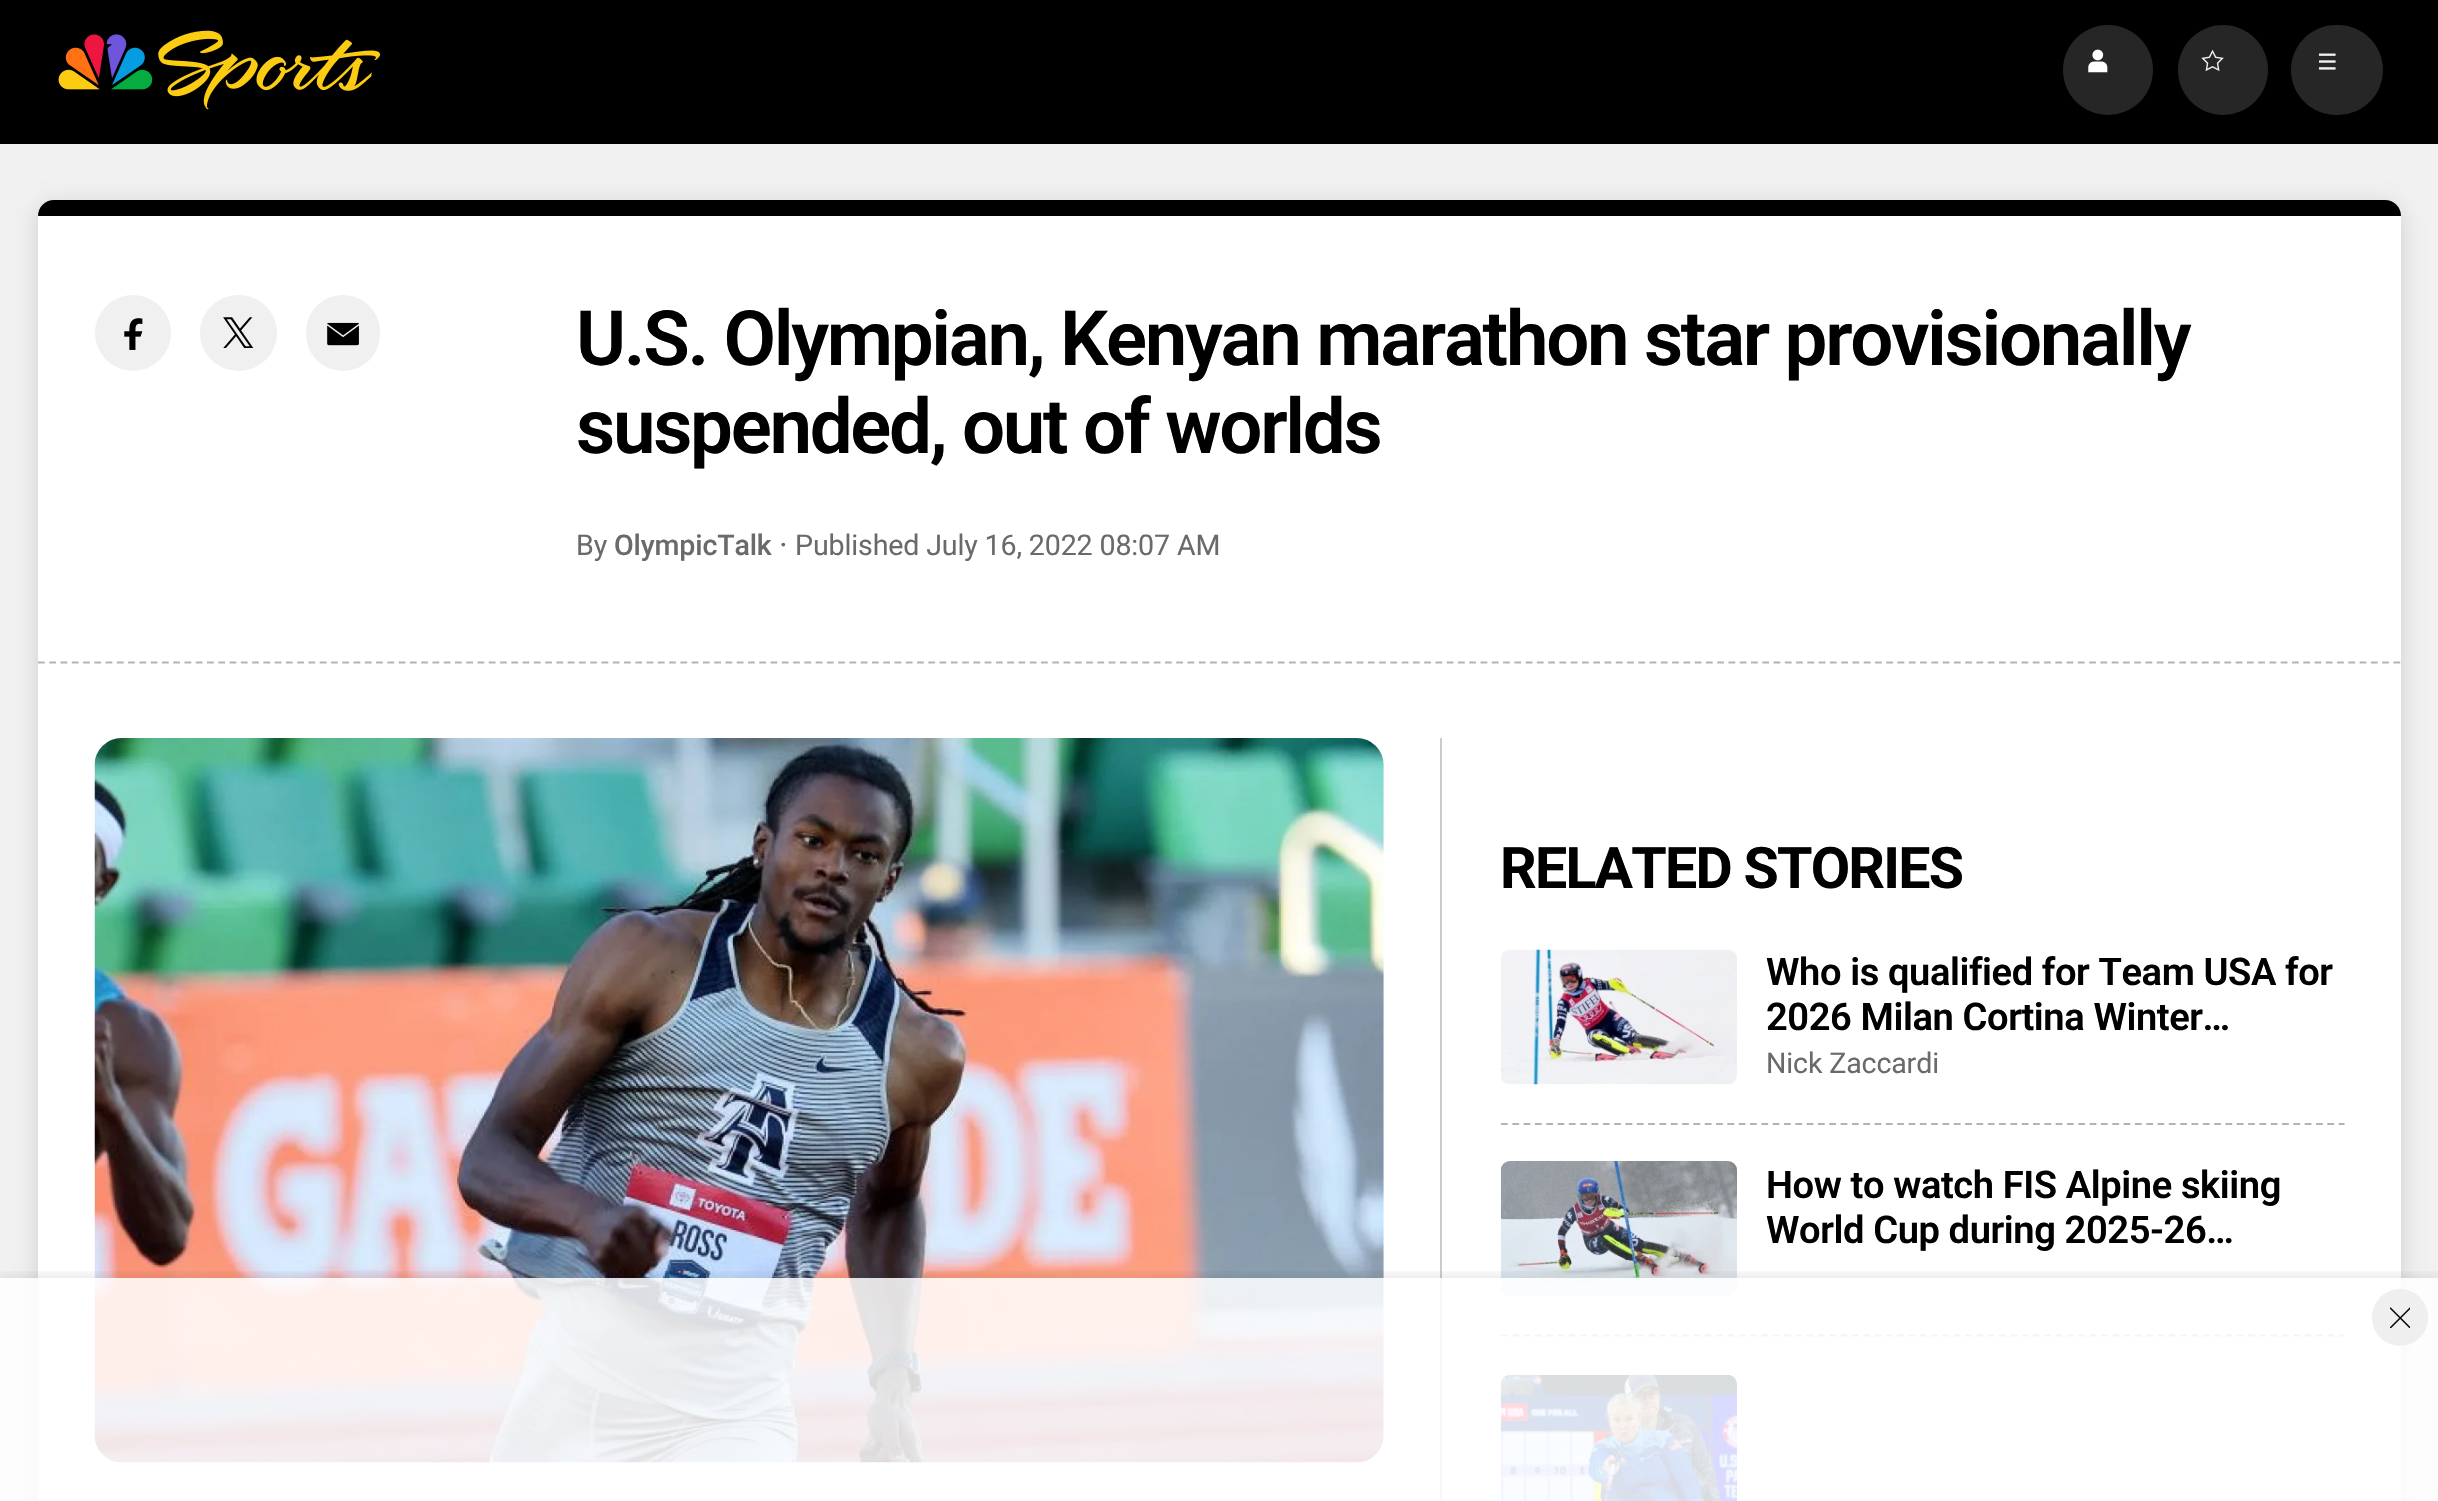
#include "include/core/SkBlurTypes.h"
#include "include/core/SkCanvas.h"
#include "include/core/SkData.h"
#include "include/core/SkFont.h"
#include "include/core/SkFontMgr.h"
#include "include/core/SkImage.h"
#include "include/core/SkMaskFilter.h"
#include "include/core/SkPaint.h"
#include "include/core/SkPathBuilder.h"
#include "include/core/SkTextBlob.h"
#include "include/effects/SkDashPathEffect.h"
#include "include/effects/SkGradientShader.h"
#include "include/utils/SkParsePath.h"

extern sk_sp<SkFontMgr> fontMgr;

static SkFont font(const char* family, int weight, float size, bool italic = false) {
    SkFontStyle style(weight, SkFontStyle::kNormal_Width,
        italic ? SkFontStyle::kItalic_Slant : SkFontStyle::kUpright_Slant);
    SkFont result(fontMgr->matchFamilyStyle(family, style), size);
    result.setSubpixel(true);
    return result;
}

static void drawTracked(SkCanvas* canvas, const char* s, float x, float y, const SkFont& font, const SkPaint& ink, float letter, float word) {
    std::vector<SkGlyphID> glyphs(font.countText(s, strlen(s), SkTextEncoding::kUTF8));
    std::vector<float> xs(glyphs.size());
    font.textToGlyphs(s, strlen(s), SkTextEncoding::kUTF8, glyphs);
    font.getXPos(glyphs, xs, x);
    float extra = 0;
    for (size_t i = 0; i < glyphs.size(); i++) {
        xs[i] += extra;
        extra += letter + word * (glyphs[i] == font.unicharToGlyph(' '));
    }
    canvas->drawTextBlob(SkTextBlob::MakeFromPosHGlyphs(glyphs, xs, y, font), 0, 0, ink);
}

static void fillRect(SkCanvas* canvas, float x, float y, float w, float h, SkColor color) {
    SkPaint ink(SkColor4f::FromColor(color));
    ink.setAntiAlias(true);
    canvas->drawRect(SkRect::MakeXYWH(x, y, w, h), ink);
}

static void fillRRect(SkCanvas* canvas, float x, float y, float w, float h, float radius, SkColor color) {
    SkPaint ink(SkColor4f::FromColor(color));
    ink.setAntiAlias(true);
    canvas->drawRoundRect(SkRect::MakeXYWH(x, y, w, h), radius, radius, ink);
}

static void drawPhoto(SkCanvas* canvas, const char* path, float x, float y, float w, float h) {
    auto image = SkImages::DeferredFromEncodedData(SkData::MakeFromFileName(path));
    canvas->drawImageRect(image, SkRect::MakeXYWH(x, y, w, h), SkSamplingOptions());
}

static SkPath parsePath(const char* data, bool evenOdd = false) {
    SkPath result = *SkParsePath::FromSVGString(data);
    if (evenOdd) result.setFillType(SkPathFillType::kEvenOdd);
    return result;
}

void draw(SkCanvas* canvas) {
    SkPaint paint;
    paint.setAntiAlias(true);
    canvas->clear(0xFFF1F1F1);
    fillRect(canvas, 0, 0, 2438, 144, 0xFF000000);
    drawPhoto(canvas, "assets/img1.png", 58, 30, 322, 80);
    paint.setColor(0xFF262626);
    canvas->drawCircle(2108, 70, 45, paint);
    drawPhoto(canvas, "assets/img2.png", 2088, 49, 20, 24);
    canvas->drawCircle(2223, 70, 45, paint);
    drawPhoto(canvas, "assets/img3.png", 2201, 49, 23, 22);
    fillRRect(canvas, 2291, 25, 92, 90, 45, 0xFF262626);
    drawPhoto(canvas, "assets/img4.png", 2318, 53, 18, 17);
    paint.setColor(0x26000000);
    paint.setMaskFilter(SkMaskFilter::MakeBlur(kNormal_SkBlurStyle, 11));
    canvas->drawRoundRect(SkRect::MakeXYWH(38, 205, 2363, 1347), 18, 18, paint);
    paint.setMaskFilter(nullptr);
    fillRRect(canvas, 38, 200, 2363, 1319, 18, 0xFFFFFFFF);
    paint.setColor(0xFF000000);
    canvas->drawPath(parsePath("M54 200H2385C2394 200 2401 207 2401 216H38C38 207 45 200 54 200Z"), paint);
    paint.setStroke(true);
    paint.setStrokeWidth(2.2f);
    paint.setColor(0xFFB3B3B3);
    paint.setPathEffect(SkDashPathEffect::Make({{6.75f, 4.52f}}, 0));
    canvas->drawPath(parsePath("M38 662.5H2401"), paint);
    paint.setPathEffect(nullptr);
    paint.setStroke(false);
    paint.setColor(0xFFF0F0F0);
    canvas->drawCircle(133, 333, 38, paint);
    drawPhoto(canvas, "assets/img5.png", 124, 318, 19, 32);
    fillRRect(canvas, 200, 295, 77, 76, 38, 0xFFF0F0F0);
    drawPhoto(canvas, "assets/img6.png", 223, 317, 31, 31);
    fillRRect(canvas, 306, 295, 74, 76, 37, 0xFFF0F0F0);
    drawPhoto(canvas, "assets/img7.png", 327, 322, 32, 24);
    SkFont font1 = font("Roboto", 600, 76.25f);
    paint.setColor(0xFF000000);
    drawTracked(canvas, "U.S. Olympian, Kenyan marathon star provisionally", 576, 365, font1, paint, -2.3f, 0);
    drawTracked(canvas, "suspended, out of worlds", 576, 453, font1, paint, -2.3f, 0);
    SkFont font2 = font("Roboto", 400, 28.6f);
    paint.setColor(0xFF6A6A6A);
    drawTracked(canvas, "By", 576, 555, font2, paint, -0.15f, 0);
    SkFont font3 = font("Roboto", 500, 28.6f);
    drawTracked(canvas, "OlympicTalk", 614, 555, font3, paint, -0.15f, 0);
    canvas->drawCircle(783.3f, 544.6f, 1.9f, paint);
    drawTracked(canvas, "Published July 16, 2022 08:07 AM", 795, 555, font2, paint, -0.15f, 0);
    drawPhoto(canvas, "assets/img8.png", 94, 738, 1290, 725);
    fillRect(canvas, 1440, 738, 2, 763, 0xFFCCCCCC);
    SkFont font4 = font("Roboto", 700, 57.25f);
    paint.setColor(0xFF000000);
    drawTracked(canvas, "RELATED STORIES", 1500, 888, font4, paint, -1.75f, 0);
    drawPhoto(canvas, "assets/img9.png", 1501, 949, 236, 136);
    SkFont font5 = font("Roboto", 600, 38.1f);
    drawTracked(canvas, "Who is qualified for Team USA for", 1766, 985, font5, paint, -0.4f, 0);
    drawTracked(canvas, "2026 Milan Cortina Winter…", 1766, 1030, font5, paint, -0.4f, 0);
    paint.setColor(0xFF6A6A6A);
    drawTracked(canvas, "Nick Zaccardi", 1766, 1073, font2, paint, -0.15f, 0);
    paint.setStroke(true);
    paint.setColor(0xFFB3B3B3);
    paint.setPathEffect(SkDashPathEffect::Make({{6.75f, 4.57f}}, 0));
    canvas->drawPath(parsePath("M1501 1124H2344.5"), paint);
    paint.setPathEffect(nullptr);
    drawPhoto(canvas, "assets/img10.png", 1500, 1161, 237, 135);
    paint.setStroke(false);
    paint.setColor(0xFF000000);
    drawTracked(canvas, "How to watch FIS Alpine skiing", 1766, 1198, font5, paint, -0.4f, 0);
    drawTracked(canvas, "World Cup during 2025-26…", 1766, 1243, font5, paint, -0.4f, 0);
    paint.setStroke(true);
    paint.setColor(0xFFB3B3B3);
    paint.setPathEffect(SkDashPathEffect::Make({{6.75f, 4.57f}}, 0));
    canvas->drawPath(parsePath("M1501 1335.5H2344.5"), paint);
    paint.setPathEffect(nullptr);
    drawPhoto(canvas, "assets/img11.png", 1500, 1374, 237, 127);
    canvas->save();
    canvas->clipRect(SkRect::MakeXYWH(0, 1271, 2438, 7));
    paint.setStroke(false);
    paint.setColor(0x14000000);
    paint.setMaskFilter(SkMaskFilter::MakeBlur(kNormal_SkBlurStyle, 4.5f));
    canvas->drawRect(SkRect::MakeXYWH(0, 1274, 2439, 225), paint);
    paint.setMaskFilter(nullptr);
    canvas->restore();
    fillRect(canvas, 0, 1278, 2438, 223, 0xD9FFFFFF);
    fillRRect(canvas, 2372, 1289, 56, 57, 28, 0xFFEFEFEF);
    drawPhoto(canvas, "assets/img12.png", 2390, 1307, 20, 21);
}
